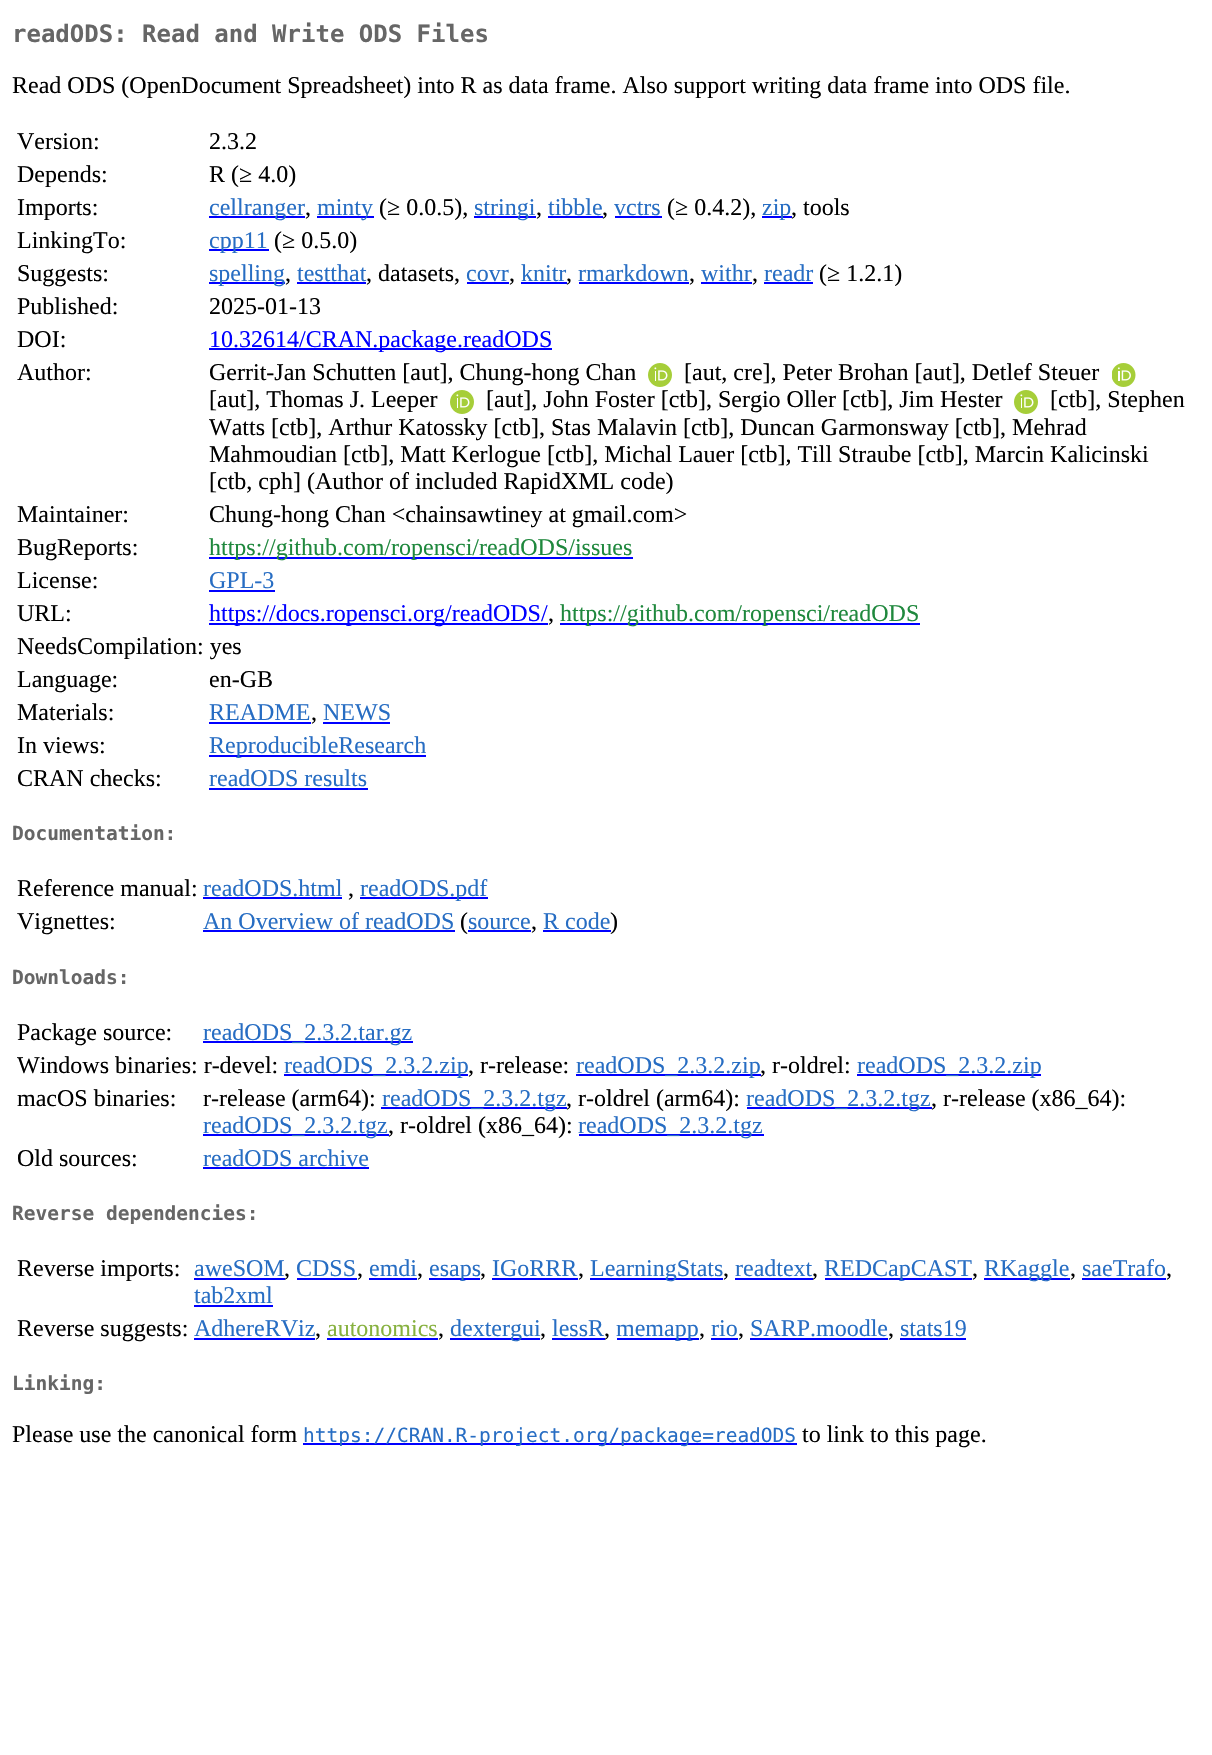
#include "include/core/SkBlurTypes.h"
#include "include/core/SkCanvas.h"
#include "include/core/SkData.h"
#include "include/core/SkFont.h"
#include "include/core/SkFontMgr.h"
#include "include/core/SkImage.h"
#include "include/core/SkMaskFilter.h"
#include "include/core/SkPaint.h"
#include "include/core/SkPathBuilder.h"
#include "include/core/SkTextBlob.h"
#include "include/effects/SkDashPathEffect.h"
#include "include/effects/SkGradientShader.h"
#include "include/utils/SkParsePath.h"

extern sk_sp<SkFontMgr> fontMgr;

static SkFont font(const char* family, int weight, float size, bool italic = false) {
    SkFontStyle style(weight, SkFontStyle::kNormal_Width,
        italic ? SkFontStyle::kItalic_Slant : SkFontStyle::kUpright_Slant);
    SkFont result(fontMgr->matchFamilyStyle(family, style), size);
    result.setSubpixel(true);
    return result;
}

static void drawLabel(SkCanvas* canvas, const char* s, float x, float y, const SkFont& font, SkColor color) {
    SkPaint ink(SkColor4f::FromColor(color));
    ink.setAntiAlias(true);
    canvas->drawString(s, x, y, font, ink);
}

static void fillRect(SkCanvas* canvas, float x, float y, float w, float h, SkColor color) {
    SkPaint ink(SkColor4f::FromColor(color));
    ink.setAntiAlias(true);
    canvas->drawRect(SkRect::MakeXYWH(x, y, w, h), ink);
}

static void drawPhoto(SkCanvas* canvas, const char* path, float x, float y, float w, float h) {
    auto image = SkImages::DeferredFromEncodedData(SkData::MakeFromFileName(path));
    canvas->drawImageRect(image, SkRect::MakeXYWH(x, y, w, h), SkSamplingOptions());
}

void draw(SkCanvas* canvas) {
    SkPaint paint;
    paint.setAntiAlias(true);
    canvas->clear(0xFFFFFFFF);
    SkFont font1 = font("DejaVu Sans Mono", 700, 24);
    drawLabel(canvas, "readODS: Read and Write ODS Files", 12, 42, font1, 0xFF666666);
    SkFont font2 = font("Liberation Serif", 400, 24);
    drawLabel(canvas, "Read ODS (OpenDocument Spreadsheet) into R as data frame. Also support writing data frame into ODS file.", 12, 93, font2, 0xFF000000);
    drawLabel(canvas, "Version:", 17, 149, font2, 0xFF000000);
    drawLabel(canvas, "2.3.2", 209, 149, font2, 0xFF000000);
    drawLabel(canvas, "Depends:", 17, 182, font2, 0xFF000000);
    drawLabel(canvas, "R (≥ 4.0)", 209, 182, font2, 0xFF000000);
    drawLabel(canvas, "Imports:", 17, 215, font2, 0xFF000000);
    fillRect(canvas, 209, 216, 96, 2, 0xFF0000FF);
    drawLabel(canvas, "cellranger", 209, 215, font2, 0xFF276DC3);
    drawLabel(canvas, ",", 305, 215, font2, 0xFF000000);
    fillRect(canvas, 317, 216, 57, 2, 0xFF0000FF);
    drawLabel(canvas, "minty", 317, 215, font2, 0xFF276DC3);
    drawLabel(canvas, "(≥ 0.0.5),", 379, 215, font2, 0xFF000000);
    fillRect(canvas, 474, 216, 62, 2, 0xFF0000FF);
    drawLabel(canvas, "stringi", 474, 215, font2, 0xFF276DC3);
    drawLabel(canvas, ",", 536, 215, font2, 0xFF000000);
    drawLabel(canvas, "tibble", 548, 215, font2, 0xFF276DC3);
    fillRect(canvas, 548, 216, 55, 2, 0xFF0000FF);
    drawLabel(canvas, ",", 602, 215, font2, 0xFF000000);
    drawLabel(canvas, "vctrs", 614, 215, font2, 0xFF276DC3);
    fillRect(canvas, 615, 216, 47, 2, 0xFF0000FF);
    drawLabel(canvas, "(≥ 0.4.2),", 667, 215, font2, 0xFF000000);
    fillRect(canvas, 762, 216, 30, 2, 0xFF0000FF);
    drawLabel(canvas, "zip", 762, 215, font2, 0xFF276DC3);
    drawLabel(canvas, ", tools", 791, 215, font2, 0xFF000000);
    drawLabel(canvas, "LinkingTo:", 17, 248, font2, 0xFF000000);
    fillRect(canvas, 209, 249, 60, 2, 0xFF0000FF);
    drawLabel(canvas, "cpp11", 209, 248, font2, 0xFF276DC3);
    drawLabel(canvas, "(≥ 0.5.0)", 274, 248, font2, 0xFF000000);
    drawLabel(canvas, "Suggests:", 17, 281, font2, 0xFF000000);
    fillRect(canvas, 209, 282, 76, 2, 0xFF0000FF);
    drawLabel(canvas, "spelling", 209, 281, font2, 0xFF276DC3);
    drawLabel(canvas, ",", 285, 281, font2, 0xFF000000);
    drawLabel(canvas, "testthat", 297, 281, font2, 0xFF276DC3);
    fillRect(canvas, 297, 282, 69, 2, 0xFF0000FF);
    drawLabel(canvas, ", datasets,", 366, 281, font2, 0xFF000000);
    drawLabel(canvas, "covr", 466, 281, font2, 0xFF276DC3);
    fillRect(canvas, 467, 282, 42, 2, 0xFF0000FF);
    drawLabel(canvas, ",", 509, 281, font2, 0xFF000000);
    drawLabel(canvas, "knitr", 521, 281, font2, 0xFF276DC3);
    fillRect(canvas, 521, 282, 46, 2, 0xFF0000FF);
    drawLabel(canvas, ",", 566, 281, font2, 0xFF000000);
    drawLabel(canvas, "rmarkdown", 578, 281, font2, 0xFF276DC3);
    fillRect(canvas, 579, 282, 110, 2, 0xFF0000FF);
    drawLabel(canvas, ",", 689, 281, font2, 0xFF000000);
    drawLabel(canvas, "withr", 701, 281, font2, 0xFF276DC3);
    fillRect(canvas, 701, 282, 51, 2, 0xFF0000FF);
    drawLabel(canvas, ",", 752, 281, font2, 0xFF000000);
    drawLabel(canvas, "readr", 764, 281, font2, 0xFF276DC3);
    fillRect(canvas, 764, 282, 49, 2, 0xFF0000FF);
    drawLabel(canvas, "(≥ 1.2.1)", 819, 281, font2, 0xFF000000);
    drawLabel(canvas, "Published:", 17, 314, font2, 0xFF000000);
    drawLabel(canvas, "2025-01-13", 209, 314, font2, 0xFF000000);
    drawLabel(canvas, "DOI:", 17, 347, font2, 0xFF000000);
    fillRect(canvas, 209, 348, 343, 2, 0xFF0000FF);
    drawLabel(canvas, "10.32614/CRAN.package.readODS", 209, 347, font2, 0xFF0000FF);
    drawLabel(canvas, "Author:", 17, 380, font2, 0xFF000000);
    drawLabel(canvas, "Gerrit-Jan Schutten [aut], Chung-hong Chan", 209, 380, font2, 0xFF000000);
    drawPhoto(canvas, "assets/img1.png", 648, 363, 24, 24);
    drawLabel(canvas, "[aut, cre], Peter Brohan [aut], Detlef Steuer", 684, 380, font2, 0xFF000000);
    drawPhoto(canvas, "assets/img2.png", 1112, 363, 24, 24);
    drawLabel(canvas, "[aut], Thomas J. Leeper", 209, 407, font2, 0xFF000000);
    drawPhoto(canvas, "assets/img1.png", 450, 390, 24, 24);
    drawLabel(canvas, "[aut], John Foster [ctb], Sergio Oller [ctb], Jim Hester", 486, 407, font2, 0xFF000000);
    drawPhoto(canvas, "assets/img1.png", 1014, 390, 24, 24);
    drawLabel(canvas, "[ctb], Stephen", 1050, 407, font2, 0xFF000000);
    drawLabel(canvas, "Watts [ctb], Arthur Katossky [ctb], Stas Malavin [ctb], Duncan Garmonsway [ctb], Mehrad", 209, 435, font2, 0xFF000000);
    drawLabel(canvas, "Mahmoudian [ctb], Matt Kerlogue [ctb], Michal Lauer [ctb], Till Straube [ctb], Marcin Kalicinski", 209, 462, font2, 0xFF000000);
    drawLabel(canvas, "[ctb, cph] (Author of included RapidXML code)", 209, 489, font2, 0xFF000000);
    drawLabel(canvas, "Maintainer:", 17, 522, font2, 0xFF000000);
    drawLabel(canvas, "Chung-hong Chan <chainsawtiney at gmail.com>", 209, 522, font2, 0xFF000000);
    drawLabel(canvas, "BugReports:", 17, 555, font2, 0xFF000000);
    fillRect(canvas, 209, 557, 424, 2, 0xFF0000FF);
    drawLabel(canvas, "https://github.com/ropensci/readODS/issues", 209, 555, font2, 0xFF1F883D);
    drawLabel(canvas, "License:", 17, 588, font2, 0xFF000000);
    drawLabel(canvas, "GPL-3", 209, 588, font2, 0xFF276DC3);
    fillRect(canvas, 209, 590, 66, 2, 0xFF0000FF);
    drawLabel(canvas, "URL:", 17, 621, font2, 0xFF000000);
    fillRect(canvas, 209, 623, 339, 2, 0xFF0000FF);
    drawLabel(canvas, "https://docs.ropensci.org/readODS/", 209, 621, font2, 0xFF0000FF);
    drawLabel(canvas, ",", 548, 621, font2, 0xFF000000);
    fillRect(canvas, 560, 623, 360, 2, 0xFF0000FF);
    drawLabel(canvas, "https://github.com/ropensci/readODS", 560, 621, font2, 0xFF1F883D);
    drawLabel(canvas, "NeedsCompilation: yes", 17, 654, font2, 0xFF000000);
    drawLabel(canvas, "Language:", 17, 687, font2, 0xFF000000);
    drawLabel(canvas, "en-GB", 209, 687, font2, 0xFF000000);
    drawLabel(canvas, "Materials:", 17, 720, font2, 0xFF000000);
    drawLabel(canvas, "README", 209, 720, font2, 0xFF276DC3);
    fillRect(canvas, 209, 722, 102, 2, 0xFF0000FF);
    drawLabel(canvas, ",", 311, 720, font2, 0xFF000000);
    drawLabel(canvas, "NEWS", 323, 720, font2, 0xFF276DC3);
    fillRect(canvas, 323, 722, 67, 2, 0xFF0000FF);
    drawLabel(canvas, "In views:", 17, 753, font2, 0xFF000000);
    fillRect(canvas, 209, 755, 217, 2, 0xFF0000FF);
    drawLabel(canvas, "ReproducibleResearch", 209, 753, font2, 0xFF276DC3);
    drawLabel(canvas, "CRAN checks:", 17, 786, font2, 0xFF000000);
    drawLabel(canvas, "readODS results", 209, 786, font2, 0xFF276DC3);
    fillRect(canvas, 209, 788, 159, 2, 0xFF0000FF);
    SkFont font3 = font("DejaVu Sans Mono", 700, 19.5f);
    drawLabel(canvas, "Documentation:", 12, 840, font3, 0xFF666666);
    drawLabel(canvas, "Reference manual:", 17, 896, font2, 0xFF000000);
    drawLabel(canvas, "readODS.html", 203, 896, font2, 0xFF276DC3);
    fillRect(canvas, 203, 897, 139, 2, 0xFF0000FF);
    drawLabel(canvas, ",", 348, 896, font2, 0xFF000000);
    fillRect(canvas, 360, 897, 128, 2, 0xFF0000FF);
    drawLabel(canvas, "readODS.pdf", 360, 896, font2, 0xFF276DC3);
    drawLabel(canvas, "Vignettes:", 17, 929, font2, 0xFF000000);
    drawLabel(canvas, "An Overview of readODS", 203, 929, font2, 0xFF276DC3);
    fillRect(canvas, 203, 930, 252, 2, 0xFF0000FF);
    drawLabel(canvas, "(", 460, 929, font2, 0xFF000000);
    drawLabel(canvas, "source", 468, 929, font2, 0xFF276DC3);
    fillRect(canvas, 468, 930, 63, 2, 0xFF0000FF);
    drawLabel(canvas, ",", 531, 929, font2, 0xFF000000);
    drawLabel(canvas, "R code", 543, 929, font2, 0xFF276DC3);
    fillRect(canvas, 543, 930, 68, 2, 0xFF0000FF);
    drawLabel(canvas, ")", 610, 929, font2, 0xFF000000);
    drawLabel(canvas, "Downloads:", 12, 984, font3, 0xFF666666);
    drawLabel(canvas, "Package source:", 17, 1040, font2, 0xFF000000);
    fillRect(canvas, 203, 1041, 210, 2, 0xFF0000FF);
    drawLabel(canvas, "readODS_2.3.2.tar.gz", 203, 1040, font2, 0xFF276DC3);
    drawLabel(canvas, "Windows binaries: r-devel:", 17, 1073, font2, 0xFF000000);
    fillRect(canvas, 284, 1074, 184, 2, 0xFF0000FF);
    drawLabel(canvas, "readODS_2.3.2.zip", 284, 1073, font2, 0xFF276DC3);
    drawLabel(canvas, ", r-release:", 468, 1073, font2, 0xFF000000);
    fillRect(canvas, 576, 1074, 185, 2, 0xFF0000FF);
    drawLabel(canvas, "readODS_2.3.2.zip", 576, 1073, font2, 0xFF276DC3);
    drawLabel(canvas, ", r-oldrel:", 760, 1073, font2, 0xFF000000);
    fillRect(canvas, 857, 1074, 184, 2, 0xFF0000FF);
    drawLabel(canvas, "readODS_2.3.2.zip", 857, 1073, font2, 0xFF276DC3);
    drawLabel(canvas, "macOS binaries:", 17, 1106, font2, 0xFF000000);
    drawLabel(canvas, "r-release (arm64):", 203, 1106, font2, 0xFF000000);
    fillRect(canvas, 381, 1107, 186, 2, 0xFF0000FF);
    drawLabel(canvas, "readODS_2.3.2.tgz", 382, 1106, font2, 0xFF276DC3);
    drawLabel(canvas, ", r-oldrel (arm64):", 566, 1106, font2, 0xFF000000);
    fillRect(canvas, 747, 1107, 185, 2, 0xFF0000FF);
    drawLabel(canvas, "readODS_2.3.2.tgz", 746, 1106, font2, 0xFF276DC3);
    drawLabel(canvas, ", r-release (x86_64):", 931, 1106, font2, 0xFF000000);
    fillRect(canvas, 203, 1134, 186, 2, 0xFF0000FF);
    drawLabel(canvas, "readODS_2.3.2.tgz", 203, 1133, font2, 0xFF276DC3);
    drawLabel(canvas, ", r-oldrel (x86_64):", 388, 1133, font2, 0xFF000000);
    fillRect(canvas, 579, 1134, 185, 2, 0xFF0000FF);
    drawLabel(canvas, "readODS_2.3.2.tgz", 578, 1133, font2, 0xFF276DC3);
    drawLabel(canvas, "Old sources:", 17, 1166, font2, 0xFF000000);
    drawLabel(canvas, "readODS archive", 203, 1166, font2, 0xFF276DC3);
    fillRect(canvas, 203, 1167, 166, 2, 0xFF0000FF);
    drawLabel(canvas, "Reverse dependencies:", 12, 1220, font3, 0xFF666666);
    drawLabel(canvas, "Reverse imports:", 17, 1276, font2, 0xFF000000);
    drawLabel(canvas, "aweSOM", 194, 1276, font2, 0xFF276DC3);
    fillRect(canvas, 194, 1278, 91, 2, 0xFF0000FF);
    drawLabel(canvas, ",", 284, 1276, font2, 0xFF000000);
    drawLabel(canvas, "CDSS", 296, 1276, font2, 0xFF276DC3);
    fillRect(canvas, 297, 1278, 60, 2, 0xFF0000FF);
    drawLabel(canvas, ",", 357, 1276, font2, 0xFF000000);
    drawLabel(canvas, "emdi", 369, 1276, font2, 0xFF276DC3);
    fillRect(canvas, 369, 1278, 48, 2, 0xFF0000FF);
    drawLabel(canvas, ",", 417, 1276, font2, 0xFF000000);
    fillRect(canvas, 429, 1278, 51, 2, 0xFF0000FF);
    drawLabel(canvas, "esaps", 429, 1276, font2, 0xFF276DC3);
    drawLabel(canvas, ",", 480, 1276, font2, 0xFF000000);
    drawLabel(canvas, "IGoRRR", 492, 1276, font2, 0xFF276DC3);
    fillRect(canvas, 492, 1278, 86, 2, 0xFF0000FF);
    drawLabel(canvas, ",", 578, 1276, font2, 0xFF000000);
    fillRect(canvas, 590, 1278, 133, 2, 0xFF0000FF);
    drawLabel(canvas, "LearningStats", 590, 1276, font2, 0xFF276DC3);
    drawLabel(canvas, ",", 723, 1276, font2, 0xFF000000);
    drawLabel(canvas, "readtext", 735, 1276, font2, 0xFF276DC3);
    fillRect(canvas, 735, 1278, 78, 2, 0xFF0000FF);
    drawLabel(canvas, ",", 812, 1276, font2, 0xFF000000);
    fillRect(canvas, 825, 1278, 147, 2, 0xFF0000FF);
    drawLabel(canvas, "REDCapCAST", 824, 1276, font2, 0xFF276DC3);
    drawLabel(canvas, ",", 972, 1276, font2, 0xFF000000);
    fillRect(canvas, 984, 1278, 86, 2, 0xFF0000FF);
    drawLabel(canvas, "RKaggle", 984, 1276, font2, 0xFF276DC3);
    drawLabel(canvas, ",", 1070, 1276, font2, 0xFF000000);
    drawLabel(canvas, "saeTrafo", 1082, 1276, font2, 0xFF276DC3);
    fillRect(canvas, 1082, 1278, 84, 2, 0xFF0000FF);
    drawLabel(canvas, ",", 1166, 1276, font2, 0xFF000000);
    drawLabel(canvas, "tab2xml", 194, 1303, font2, 0xFF276DC3);
    fillRect(canvas, 194, 1305, 79, 2, 0xFF0000FF);
    drawLabel(canvas, "Reverse suggests:", 17, 1336, font2, 0xFF000000);
    drawLabel(canvas, "AdhereRViz", 194, 1336, font2, 0xFF276DC3);
    fillRect(canvas, 194, 1338, 121, 2, 0xFF0000FF);
    drawLabel(canvas, ",", 315, 1336, font2, 0xFF000000);
    drawLabel(canvas, "autonomics", 327, 1336, font2, 0xFF87B13F);
    fillRect(canvas, 327, 1338, 111, 2, 0xFF0000FF);
    drawLabel(canvas, ",", 438, 1336, font2, 0xFF000000);
    fillRect(canvas, 450, 1338, 90, 2, 0xFF0000FF);
    drawLabel(canvas, "dextergui", 450, 1336, font2, 0xFF276DC3);
    drawLabel(canvas, ",", 540, 1336, font2, 0xFF000000);
    drawLabel(canvas, "lessR", 552, 1336, font2, 0xFF276DC3);
    fillRect(canvas, 552, 1338, 53, 2, 0xFF0000FF);
    drawLabel(canvas, ",", 604, 1336, font2, 0xFF000000);
    fillRect(canvas, 617, 1338, 82, 2, 0xFF0000FF);
    drawLabel(canvas, "memapp", 616, 1336, font2, 0xFF276DC3);
    drawLabel(canvas, ",", 699, 1336, font2, 0xFF000000);
    drawLabel(canvas, "rio", 711, 1336, font2, 0xFF276DC3);
    fillRect(canvas, 711, 1338, 27, 2, 0xFF0000FF);
    drawLabel(canvas, ",", 738, 1336, font2, 0xFF000000);
    drawLabel(canvas, "SARP.moodle", 750, 1336, font2, 0xFF276DC3);
    fillRect(canvas, 750, 1338, 138, 2, 0xFF0000FF);
    drawLabel(canvas, ",", 888, 1336, font2, 0xFF000000);
    drawLabel(canvas, "stats19", 900, 1336, font2, 0xFF276DC3);
    fillRect(canvas, 900, 1338, 66, 2, 0xFF0000FF);
    drawLabel(canvas, "Linking:", 12, 1390, font3, 0xFF666666);
    drawLabel(canvas, "Please use the canonical form", 12, 1442, font2, 0xFF000000);
    fillRect(canvas, 303, 1443, 494, 2, 0xFF0000FF);
    SkFont font4 = font("DejaVu Sans Mono", 400, 19.5f);
    drawLabel(canvas, "https://CRAN.R-project.org/package=readODS", 303, 1442, font4, 0xFF276DC3);
    drawLabel(canvas, "to link to this page.", 802, 1442, font2, 0xFF000000);
}
